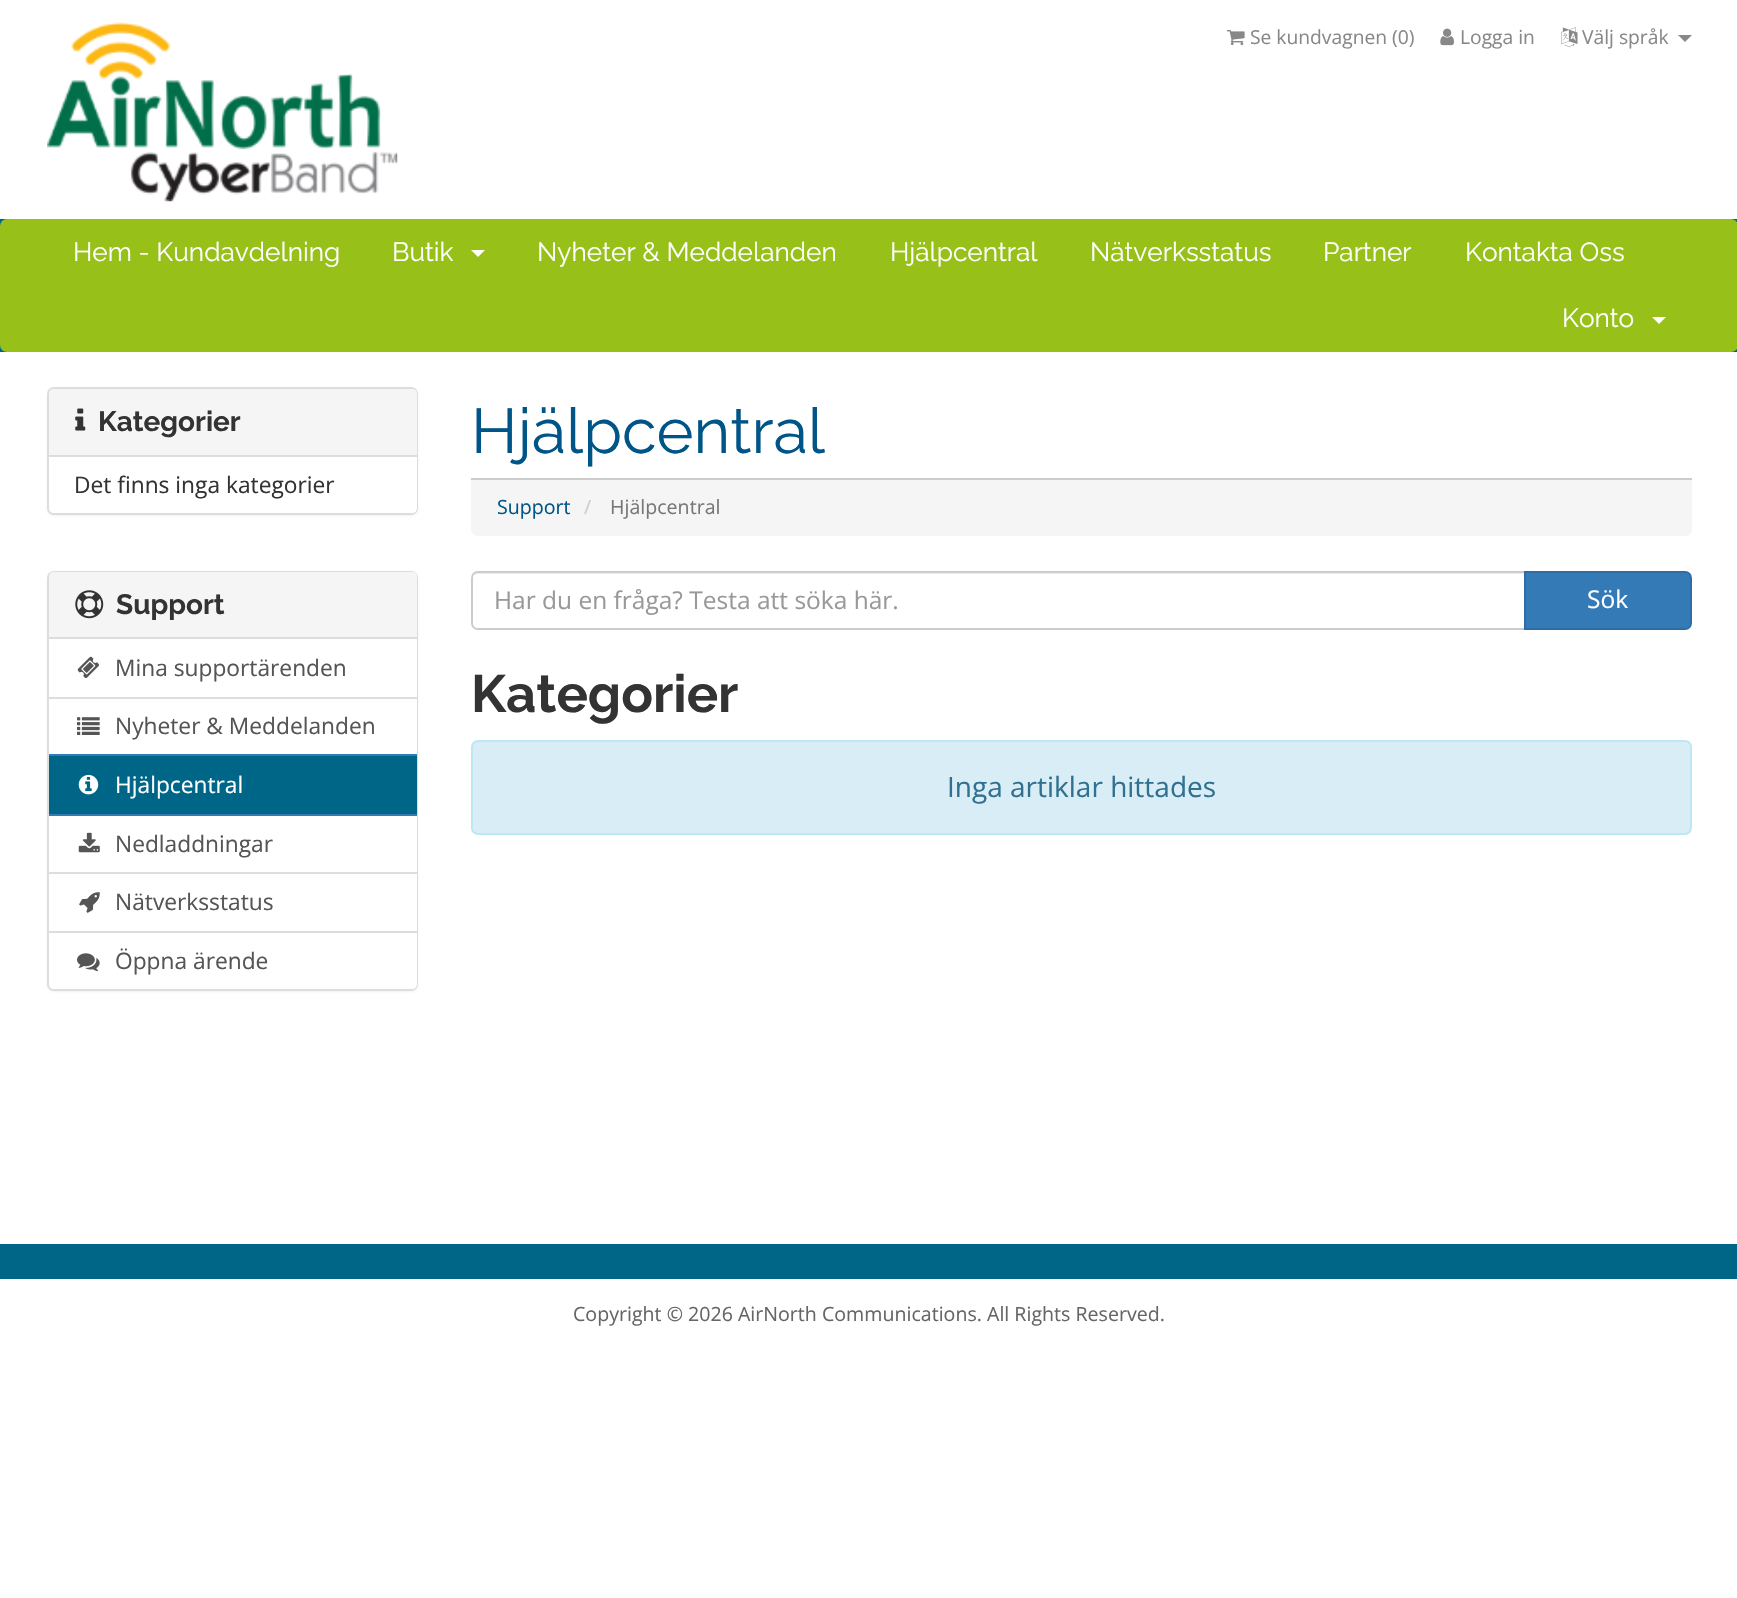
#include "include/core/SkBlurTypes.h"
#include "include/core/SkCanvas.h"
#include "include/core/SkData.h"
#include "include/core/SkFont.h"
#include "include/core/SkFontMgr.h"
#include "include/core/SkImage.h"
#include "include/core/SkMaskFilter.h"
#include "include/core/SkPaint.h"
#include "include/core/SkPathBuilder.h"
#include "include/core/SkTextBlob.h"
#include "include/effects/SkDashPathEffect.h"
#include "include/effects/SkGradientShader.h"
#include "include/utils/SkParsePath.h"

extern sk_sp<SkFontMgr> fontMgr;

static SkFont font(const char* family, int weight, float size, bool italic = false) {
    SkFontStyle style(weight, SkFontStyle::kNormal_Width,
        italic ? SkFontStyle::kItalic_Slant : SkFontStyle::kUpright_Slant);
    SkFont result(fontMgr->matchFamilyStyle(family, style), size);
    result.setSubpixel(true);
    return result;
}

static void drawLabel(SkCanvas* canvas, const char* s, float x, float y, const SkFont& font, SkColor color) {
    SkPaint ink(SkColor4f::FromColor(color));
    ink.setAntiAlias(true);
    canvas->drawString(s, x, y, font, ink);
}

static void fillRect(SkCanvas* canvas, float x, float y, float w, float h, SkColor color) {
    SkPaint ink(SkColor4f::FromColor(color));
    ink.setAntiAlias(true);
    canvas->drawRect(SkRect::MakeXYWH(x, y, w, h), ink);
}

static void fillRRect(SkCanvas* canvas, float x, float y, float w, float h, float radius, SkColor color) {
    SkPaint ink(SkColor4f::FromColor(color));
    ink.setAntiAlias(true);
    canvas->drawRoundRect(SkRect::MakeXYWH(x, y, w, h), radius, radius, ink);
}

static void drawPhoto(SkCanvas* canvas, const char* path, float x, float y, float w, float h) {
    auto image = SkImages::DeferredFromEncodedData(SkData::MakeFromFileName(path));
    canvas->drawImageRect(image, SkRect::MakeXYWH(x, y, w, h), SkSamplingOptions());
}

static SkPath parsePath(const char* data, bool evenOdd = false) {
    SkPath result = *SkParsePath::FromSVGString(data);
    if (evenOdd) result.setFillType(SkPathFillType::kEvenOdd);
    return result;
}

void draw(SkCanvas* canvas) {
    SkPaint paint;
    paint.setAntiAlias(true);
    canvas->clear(0xFFFFFFFF);
    drawPhoto(canvas, "assets/img1.png", 47, 22, 351, 180);
    drawPhoto(canvas, "assets/img2.png", 1226, 30, 19, 16);
    SkFont font1 = font("Open Sans", 400, 19.25f);
    drawLabel(canvas, "Se kundvagnen (0)", 1250, 44, font1, 0xFF888888);
    drawPhoto(canvas, "assets/img3.png", 1440, 28, 14, 18);
    drawLabel(canvas, "Logga in", 1460, 44, font1, 0xFF888888);
    drawPhoto(canvas, "assets/img4.png", 1561, 27, 17, 20);
    drawLabel(canvas, "Välj språk", 1582, 44, font1, 0xFF888888);
    paint.setColor(0xFF888888);
    canvas->drawPath(parsePath("M1678 35H1692L1685 42Z"), paint);
    fillRect(canvas, 0, 219, 1737, 133, 0xFF006687);
    fillRRect(canvas, 0, 219, 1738, 133, 7, 0xFF97C019);
    SkFont font2 = font("Raleway", 400, 26.25f);
    drawLabel(canvas, "Hem - Kundavdelning", 73, 261, font2, 0xFFFFFFFF);
    drawLabel(canvas, "Butik", 392, 261, font2, 0xFFFFFFFF);
    paint.setColor(0xFFFFFFFF);
    canvas->drawPath(parsePath("M471 250H485L478 257Z"), paint);
    drawLabel(canvas, "Nyheter & Meddelanden", 537, 261, font2, 0xFFFFFFFF);
    drawLabel(canvas, "Hjälpcentral", 890, 261, font2, 0xFFFFFFFF);
    drawLabel(canvas, "Nätverksstatus", 1090, 261, font2, 0xFFFFFFFF);
    drawLabel(canvas, "Partner", 1323, 261, font2, 0xFFFFFFFF);
    drawLabel(canvas, "Kontakta Oss", 1465, 261, font2, 0xFFFFFFFF);
    drawLabel(canvas, "Konto", 1562, 327, font2, 0xFFFFFFFF);
    canvas->drawPath(parsePath("M1652 317H1666L1659 324Z"), paint);
    paint.setColor(0x0D000000);
    paint.setMaskFilter(SkMaskFilter::MakeBlur(kNormal_SkBlurStyle, 1));
    canvas->drawRoundRect(SkRect::MakeXYWH(47, 389, 371, 127), 7, 7, paint);
    paint.setMaskFilter(nullptr);
    paint.setStroke(true);
    paint.setStrokeWidth(2);
    paint.setColor(0xFFDDDDDD);
    canvas->drawRoundRect(SkRect::MakeXYWH(48, 388, 369, 126), 6, 6, paint);
    paint.setStroke(false);
    paint.setColor(0xFFF5F5F5);
    canvas->drawPath(parsePath("M54 389H412C415 389 417 391 417 394V457H49V394C49 391 51 389 54 389Z"), paint);
    fillRect(canvas, 49, 455, 368, 2, 0xFFDDDDDD);
    drawPhoto(canvas, "assets/img5.png", 75, 408, 11, 23);
    SkFont font3 = font("Raleway", 700, 28);
    drawLabel(canvas, "Kategorier", 98, 431, font3, 0xFF333333);
    paint.setColor(0xFFFFFFFF);
    canvas->drawPath(parsePath("M49 457H417V508C417 511 415 513 412 513H54C51 513 49 511 49 508Z"), paint);
    SkFont font4 = font("Open Sans", 400, 22.75f);
    drawLabel(canvas, "Det finns inga kategorier", 74, 493, font4, 0xFF333333);
    fillRect(canvas, 471, 478, 1221, 2, 0xFFCCCCCC);
    SkFont font5 = font("Raleway", 400, 63);
    drawLabel(canvas, "Hjälpcentral", 471, 453, font5, 0xFF005588);
    paint.setColor(0xFFF5F5F5);
    canvas->drawPath(parsePath("M471 480H1692V529C1692 533 1689 536 1685 536H478C474 536 471 533 471 529Z"), paint);
    SkFont font6 = font("Open Sans", 400, 19.6f);
    drawLabel(canvas, "Support", 497, 514, font6, 0xFF005588);
    drawLabel(canvas, "/", 584, 514, font6, 0xFFCCCCCC);
    drawLabel(canvas, "Hjälpcentral", 610, 514, font6, 0xFF777777);
    paint.setColor(0x0D000000);
    paint.setMaskFilter(SkMaskFilter::MakeBlur(kNormal_SkBlurStyle, 1));
    canvas->drawRoundRect(SkRect::MakeXYWH(47, 572, 371, 420), 7, 7, paint);
    paint.setMaskFilter(nullptr);
    paint.setStroke(true);
    paint.setColor(0xFFDDDDDD);
    canvas->drawRoundRect(SkRect::MakeXYWH(48, 572, 369, 418), 6, 6, paint);
    paint.setStroke(false);
    paint.setColor(0xFFF5F5F5);
    canvas->drawPath(parsePath("M54 572H412C415 572 417 574 417 577V639H49V577C49 574 51 572 54 572Z"), paint);
    fillRect(canvas, 49, 637, 368, 2, 0xFFDDDDDD);
    drawPhoto(canvas, "assets/img6.png", 75, 590, 29, 29);
    drawLabel(canvas, "Support", 116, 614, font3, 0xFF333333);
    fillRect(canvas, 49, 639, 368, 58, 0xFFFFFFFF);
    drawPhoto(canvas, "assets/img7.png", 77, 656, 22, 22);
    drawLabel(canvas, "Mina supportärenden", 115, 676, font4, 0xFF555555);
    fillRect(canvas, 49, 699, 368, 55, 0xFFFFFFFF);
    fillRect(canvas, 49, 697, 368, 2, 0xFFDDDDDD);
    drawPhoto(canvas, "assets/img8.png", 77, 717, 23, 18);
    drawLabel(canvas, "Nyheter & Meddelanden", 115, 734, font4, 0xFF555555);
    fillRect(canvas, 49, 756, 368, 58, 0xFF006687);
    fillRect(canvas, 49, 754, 368, 2, 0xFF337AB7);
    fillRect(canvas, 49, 814, 368, 2, 0xFF337AB7);
    drawPhoto(canvas, "assets/img9.png", 78, 774, 21, 21);
    drawLabel(canvas, "Hjälpcentral", 115, 793, font4, 0xFFFFFFFF);
    fillRect(canvas, 49, 816, 368, 56, 0xFFFFFFFF);
    drawPhoto(canvas, "assets/img10.png", 78, 832, 22, 21);
    drawLabel(canvas, "Nedladdningar", 115, 852, font4, 0xFF555555);
    fillRect(canvas, 49, 874, 368, 57, 0xFFFFFFFF);
    fillRect(canvas, 49, 872, 368, 2, 0xFFDDDDDD);
    drawPhoto(canvas, "assets/img11.png", 79, 892, 21, 21);
    drawLabel(canvas, "Nätverksstatus", 115, 910, font4, 0xFF555555);
    paint.setColor(0xFFFFFFFF);
    canvas->drawPath(parsePath("M49 931H417V984C417 987 415 989 412 989H54C51 989 49 987 49 984Z"), paint);
    fillRect(canvas, 49, 931, 368, 2, 0xFFDDDDDD);
    drawPhoto(canvas, "assets/img12.png", 77, 953, 23, 19);
    drawLabel(canvas, "Öppna ärende", 115, 969, font4, 0xFF555555);
    paint.setColor(0xFFECECEC);
    canvas->drawPath(parsePath("M478 574H1524V572H478C476 572 473 574 473 576C474 575 476 574 478 574Z"), paint);
    paint.setStroke(true);
    paint.setColor(0xFFCCCCCC);
    canvas->drawPath(parsePath("M478 572H1525V629H478C474.5 629 472 626.5 472 623V578C472 574.5 474.5 572 478 572Z"), paint);
    SkFont font7 = font("Open Sans", 400, 24.5f);
    drawLabel(canvas, "Har du en fråga? Testa att söka här.", 494, 609, font7, 0xFF999999);
    paint.setStroke(false);
    paint.setColor(0xFF337AB7);
    canvas->drawPath(parsePath("M1525 572H1685C1688.5 572 1691 574.5 1691 578V623C1691 626.5 1688.5 629 1685 629H1525Z"), paint);
    paint.setStroke(true);
    paint.setColor(0xFF2E6DA4);
    canvas->drawPath(parsePath("M1525 572H1685C1688.5 572 1691 574.5 1691 578V623C1691 626.5 1688.5 629 1685 629H1525Z"), paint);
    drawLabel(canvas, "Sök", 1587, 608, font7, 0xFFFFFFFF);
    SkFont font8 = font("Raleway", 700, 52.5f);
    drawLabel(canvas, "Kategorier", 471, 712, font8, 0xFF333333);
    paint.setStroke(false);
    paint.setColor(0xFFD9EDF7);
    canvas->drawRoundRect(SkRect::MakeXYWH(472, 741, 1219, 93), 6, 6, paint);
    paint.setStroke(true);
    paint.setColor(0xFFBCE8F1);
    canvas->drawRoundRect(SkRect::MakeXYWH(472, 741, 1219, 93), 6, 6, paint);
    SkFont font9 = font("Open Sans", 400, 28);
    drawLabel(canvas, "Inga artiklar hittades", 947, 797, font9, 0xFF31708F);
    fillRect(canvas, 0, 1244, 1737, 35, 0xFF006687);
    drawLabel(canvas, "Copyright © 2026 AirNorth Communications. All Rights Reserved.", 573, 1321, font6, 0xFF666666);
}
